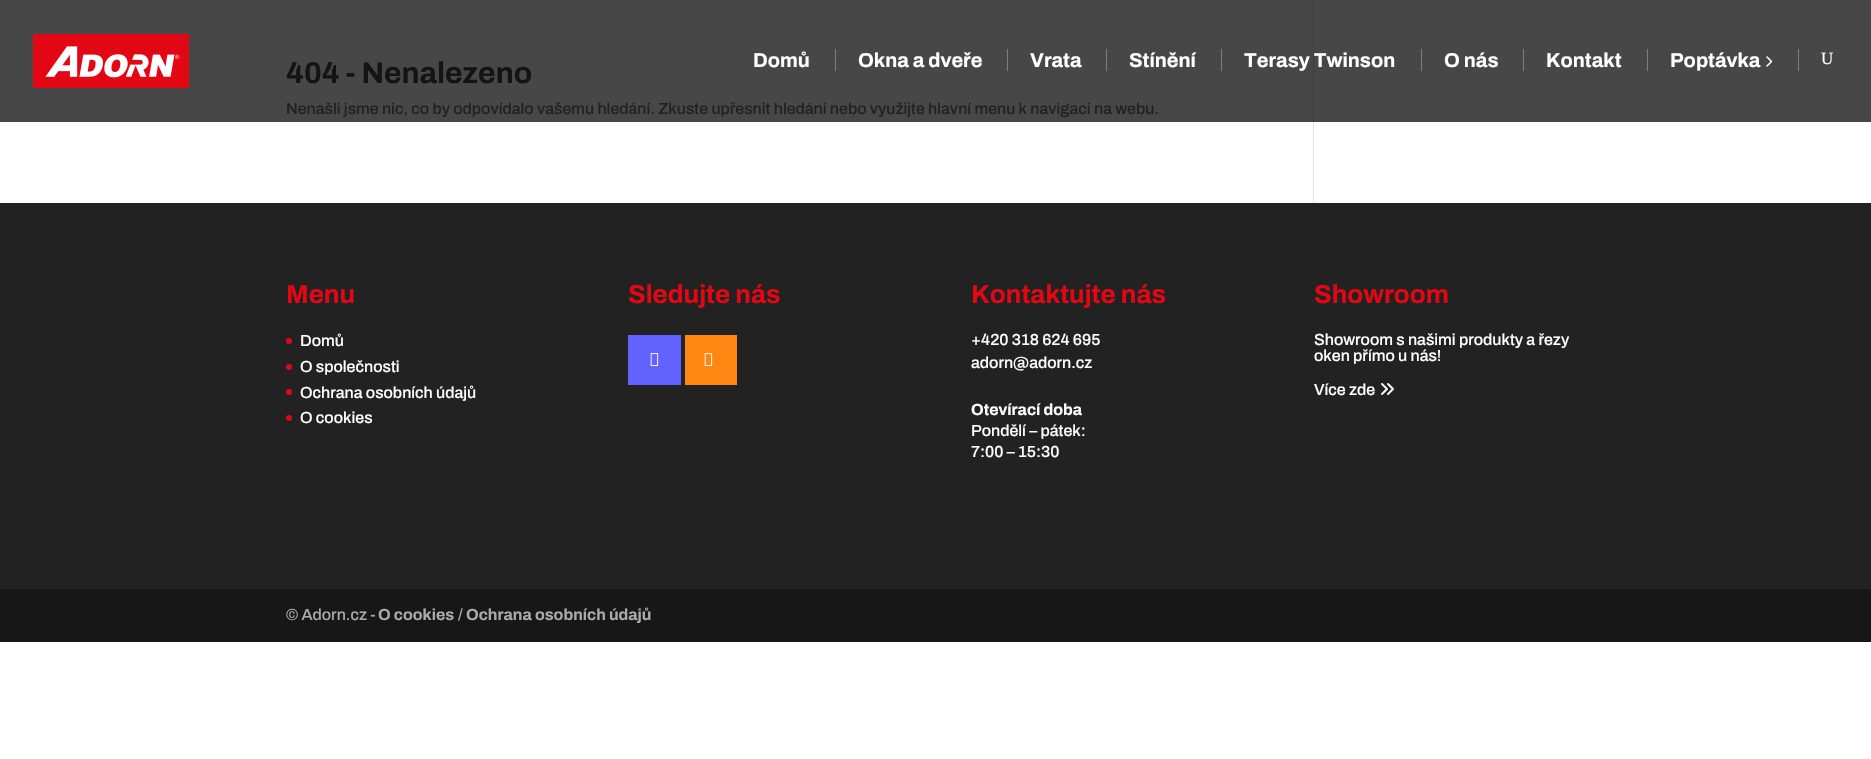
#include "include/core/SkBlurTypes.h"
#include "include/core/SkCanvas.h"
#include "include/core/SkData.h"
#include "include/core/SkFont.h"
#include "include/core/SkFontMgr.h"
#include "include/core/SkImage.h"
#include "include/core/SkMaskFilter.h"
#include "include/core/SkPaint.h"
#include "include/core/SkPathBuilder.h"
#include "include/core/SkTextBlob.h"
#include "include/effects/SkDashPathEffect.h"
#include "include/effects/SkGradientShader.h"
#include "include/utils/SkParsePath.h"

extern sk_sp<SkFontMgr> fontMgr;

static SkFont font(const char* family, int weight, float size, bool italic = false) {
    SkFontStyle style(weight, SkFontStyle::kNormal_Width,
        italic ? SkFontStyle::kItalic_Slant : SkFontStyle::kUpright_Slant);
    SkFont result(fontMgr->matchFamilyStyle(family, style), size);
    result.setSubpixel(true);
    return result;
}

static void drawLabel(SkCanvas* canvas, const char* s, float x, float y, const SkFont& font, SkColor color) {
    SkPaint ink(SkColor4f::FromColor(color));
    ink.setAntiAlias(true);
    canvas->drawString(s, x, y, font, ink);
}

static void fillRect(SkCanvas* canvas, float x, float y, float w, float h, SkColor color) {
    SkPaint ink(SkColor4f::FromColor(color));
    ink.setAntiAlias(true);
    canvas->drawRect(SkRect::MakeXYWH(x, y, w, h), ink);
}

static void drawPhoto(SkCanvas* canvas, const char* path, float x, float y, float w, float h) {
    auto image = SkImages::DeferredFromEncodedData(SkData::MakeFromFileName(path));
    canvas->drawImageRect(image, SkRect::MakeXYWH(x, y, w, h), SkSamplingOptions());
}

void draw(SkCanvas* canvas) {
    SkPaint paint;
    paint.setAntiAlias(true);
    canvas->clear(0xFFFFFFFF);
    fillRect(canvas, 0, 0, 1871, 122, 0xFF474747);
    drawPhoto(canvas, "assets/img1.png", 33, 34, 156, 54);
    SkFont font1 = font("Archivo", 700, 20);
    drawLabel(canvas, "Domů", 753, 67, font1, 0xFFFFFFFF);
    fillRect(canvas, 835, 49, 1, 22, 0xFF7E7E7E);
    drawLabel(canvas, "Okna a dveře", 858, 67, font1, 0xFFFFFFFF);
    fillRect(canvas, 1007, 49, 1, 22, 0xFF7E7E7E);
    drawLabel(canvas, "Vrata", 1030, 67, font1, 0xFFFFFFFF);
    fillRect(canvas, 1106, 49, 1, 22, 0xFF7E7E7E);
    drawLabel(canvas, "Stínění", 1129, 67, font1, 0xFFFFFFFF);
    fillRect(canvas, 1221, 49, 1, 22, 0xFF7E7E7E);
    fillRect(canvas, 1313, 0, 1, 122, 0xFF404040);
    drawLabel(canvas, "Terasy Twinson", 1244, 67, font1, 0xFFFFFFFF);
    fillRect(canvas, 1421, 49, 1, 22, 0xFF7E7E7E);
    drawLabel(canvas, "O nás", 1444, 67, font1, 0xFFFFFFFF);
    fillRect(canvas, 1523, 49, 1, 22, 0xFF7E7E7E);
    drawLabel(canvas, "Kontakt", 1546, 67, font1, 0xFFFFFFFF);
    fillRect(canvas, 1647, 49, 1, 22, 0xFF7E7E7E);
    drawLabel(canvas, "Poptávka", 1670, 67, font1, 0xFFFFFFFF);
    drawPhoto(canvas, "assets/img2.png", 1766, 56, 7, 11);
    fillRect(canvas, 1798, 49, 1, 22, 0xFF7E7E7E);
    SkFont font2 = font("Liberation Serif", 400, 17);
    drawLabel(canvas, "U", 1821, 64, font2, 0xFFFFFFFF);
    SkFont font3 = font("Archivo", 700, 30);
    drawLabel(canvas, "404 - Nenalezeno", 286, 83, font3, 0xFF141414);
    SkFont font4 = font("Archivo", 500, 16);
    drawLabel(canvas, "Nenašli jsme nic, co by odpovídalo vašemu hledání. Zkuste upřesnit hledání nebo využijte hlavní menu k navigaci na webu.", 286, 114, font4, 0xFF212121);
    fillRect(canvas, 1313, 122, 1, 81, 0xFFE2E2E2);
    fillRect(canvas, 0, 203, 1871, 386, 0xFF222222);
    SkFont font5 = font("Archivo", 700, 26);
    drawLabel(canvas, "Menu", 286, 303, font5, 0xFFE30613);
    paint.setColor(0xFFE30613);
    canvas->drawCircle(289, 341, 3, paint);
    drawLabel(canvas, "Domů", 300, 346, font4, 0xFFFFFFFF);
    canvas->drawCircle(289, 367, 3, paint);
    drawLabel(canvas, "O společnosti", 300, 372, font4, 0xFFFFFFFF);
    canvas->drawCircle(289, 392, 3, paint);
    drawLabel(canvas, "Ochrana osobních údajů", 300, 398, font4, 0xFFFFFFFF);
    canvas->drawCircle(289, 418, 3, paint);
    drawLabel(canvas, "O cookies", 300, 423, font4, 0xFFFFFFFF);
    drawLabel(canvas, "Sledujte nás", 628, 303, font5, 0xFFE30613);
    fillRect(canvas, 628, 335, 53, 50, 0xFF6262FF);
    drawPhoto(canvas, "assets/img3.png", 650, 353, 9, 13);
    fillRect(canvas, 685, 335, 52, 50, 0xFFFF8711);
    drawPhoto(canvas, "assets/img4.png", 704, 353, 9, 13);
    drawLabel(canvas, "Kontaktujte nás", 971, 303, font5, 0xFFE30613);
    drawLabel(canvas, "+420 318 624 695", 971, 345, font4, 0xFFFFFFFF);
    drawLabel(canvas, "adorn@adorn.cz", 971, 368, font4, 0xFFFFFFFF);
    SkFont font6 = font("Archivo", 700, 16);
    drawLabel(canvas, "Otevírací doba", 971, 415, font6, 0xFFFFFFFF);
    drawLabel(canvas, "Pondělí – pátek:", 971, 436, font4, 0xFFFFFFFF);
    drawLabel(canvas, "7:00 – 15:30", 971, 457, font4, 0xFFFFFFFF);
    drawLabel(canvas, "Showroom", 1314, 303, font5, 0xFFE30613);
    drawLabel(canvas, "Showroom s našimi produkty a řezy", 1314, 345, font4, 0xFFFFFFFF);
    drawLabel(canvas, "oken přímo u nás!", 1314, 361, font4, 0xFFFFFFFF);
    drawLabel(canvas, "Více zde", 1314, 395, font4, 0xFFFFFFFF);
    drawPhoto(canvas, "assets/img5.png", 1381, 383, 13, 12);
    fillRect(canvas, 0, 589, 1871, 53, 0xFF171717);
    drawLabel(canvas, "© Adorn.cz -", 286, 620, font4, 0xFFAAAAAA);
    drawLabel(canvas, "O cookies", 378, 620, font6, 0xFFAAAAAA);
    drawLabel(canvas, "/", 458, 620, font4, 0xFFAAAAAA);
    drawLabel(canvas, "Ochrana osobních údajů", 466, 620, font6, 0xFFAAAAAA);
}
